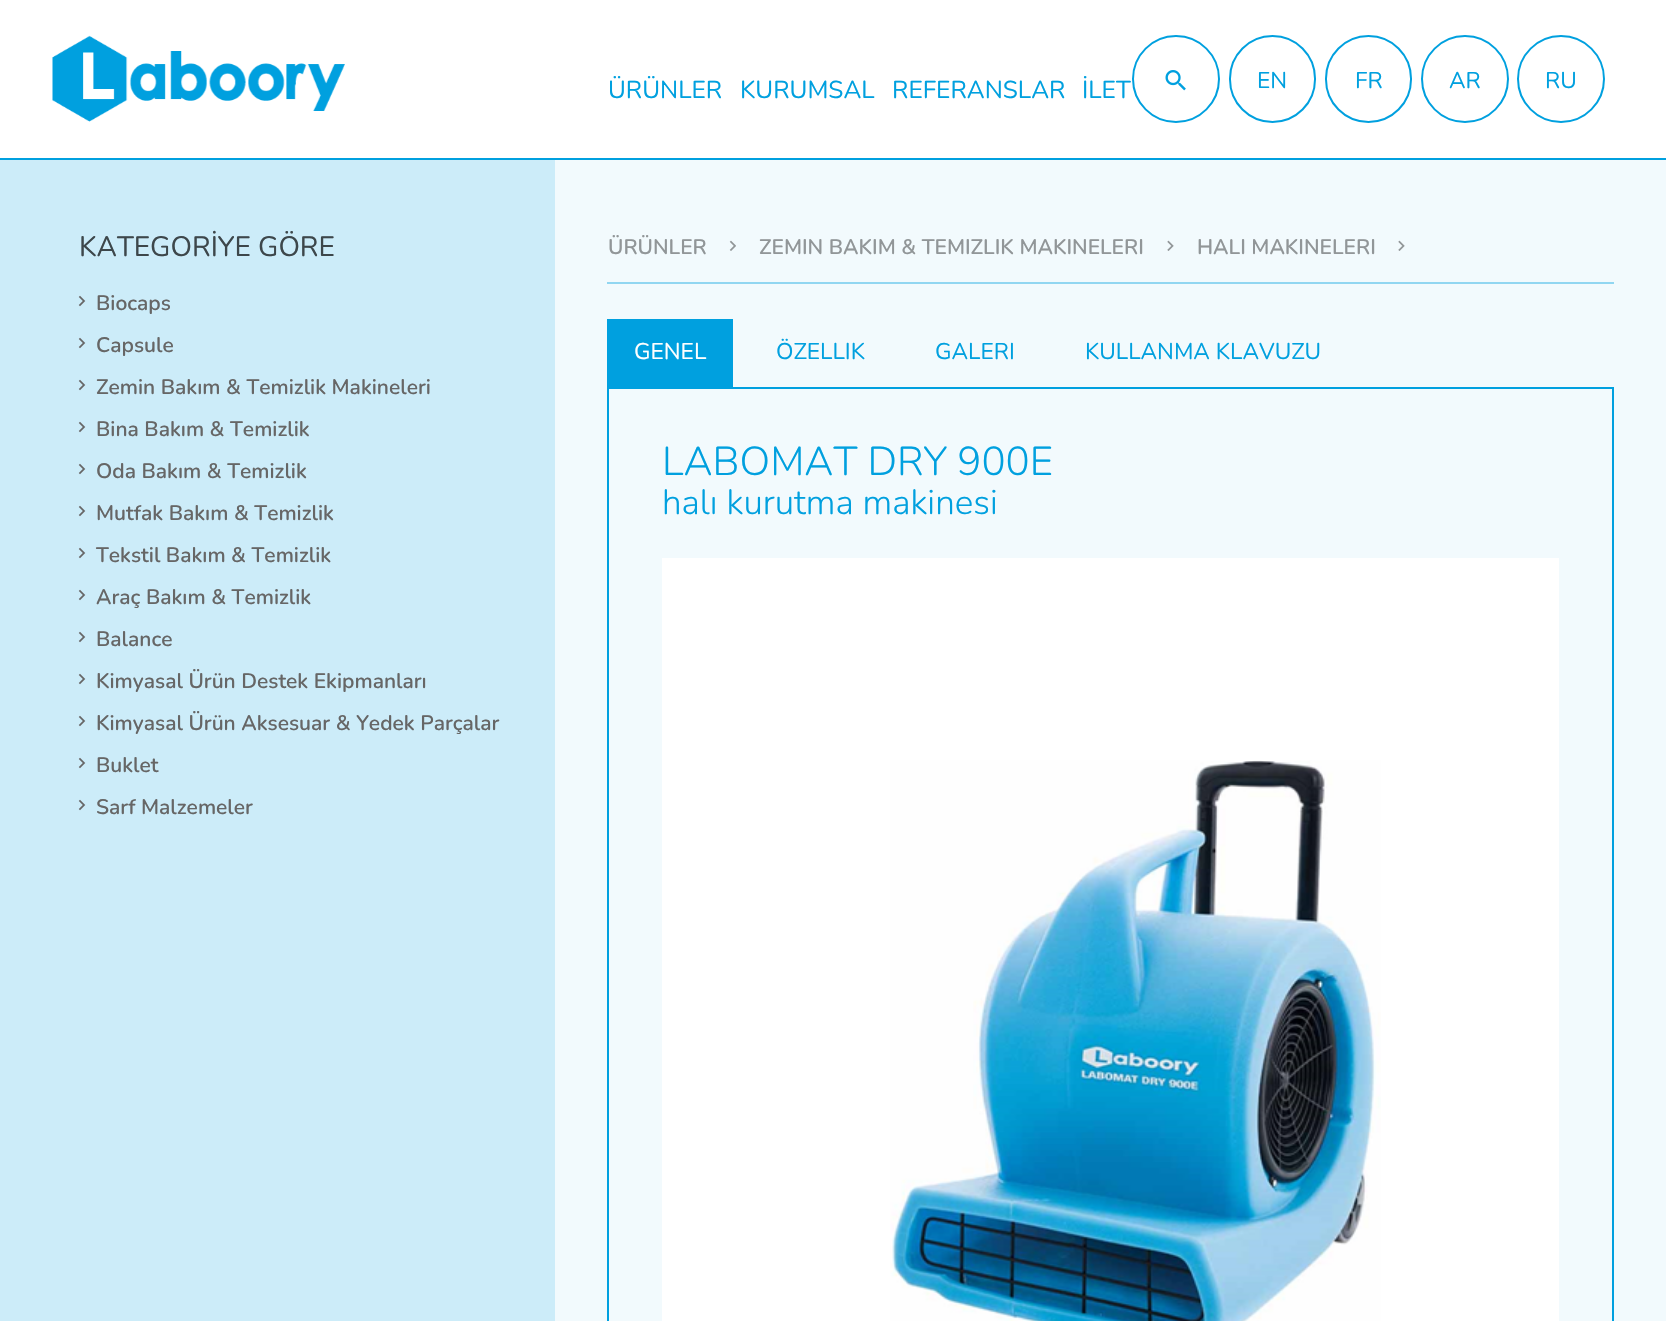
#include "include/core/SkBlurTypes.h"
#include "include/core/SkCanvas.h"
#include "include/core/SkData.h"
#include "include/core/SkFont.h"
#include "include/core/SkFontMgr.h"
#include "include/core/SkImage.h"
#include "include/core/SkMaskFilter.h"
#include "include/core/SkPaint.h"
#include "include/core/SkPathBuilder.h"
#include "include/core/SkTextBlob.h"
#include "include/effects/SkDashPathEffect.h"
#include "include/effects/SkGradientShader.h"
#include "include/utils/SkParsePath.h"

extern sk_sp<SkFontMgr> fontMgr;

static SkFont font(const char* family, int weight, float size, bool italic = false) {
    SkFontStyle style(weight, SkFontStyle::kNormal_Width,
        italic ? SkFontStyle::kItalic_Slant : SkFontStyle::kUpright_Slant);
    SkFont result(fontMgr->matchFamilyStyle(family, style), size);
    result.setSubpixel(true);
    return result;
}

static void drawLabel(SkCanvas* canvas, const char* s, float x, float y, const SkFont& font, SkColor color) {
    SkPaint ink(SkColor4f::FromColor(color));
    ink.setAntiAlias(true);
    canvas->drawString(s, x, y, font, ink);
}

static void fillRect(SkCanvas* canvas, float x, float y, float w, float h, SkColor color) {
    SkPaint ink(SkColor4f::FromColor(color));
    ink.setAntiAlias(true);
    canvas->drawRect(SkRect::MakeXYWH(x, y, w, h), ink);
}

static void drawPhoto(SkCanvas* canvas, const char* path, float x, float y, float w, float h) {
    auto image = SkImages::DeferredFromEncodedData(SkData::MakeFromFileName(path));
    canvas->drawImageRect(image, SkRect::MakeXYWH(x, y, w, h), SkSamplingOptions());
}

void draw(SkCanvas* canvas) {
    SkPaint paint;
    paint.setAntiAlias(true);
    canvas->clear(0xFFCCECF9);
    fillRect(canvas, 0, 0, 1666, 158, 0xFFFFFFFF);
    fillRect(canvas, 0, 158, 1666, 2, 0xFF00A0DF);
    drawPhoto(canvas, "assets/img1.png", 52, 35, 293, 87);
    SkFont font1 = font("Nunito", 400, 24.5f);
    drawLabel(canvas, "ÜRÜNLER", 608, 98, font1, 0xFF00A0DF);
    drawLabel(canvas, "KURUMSAL", 740, 98, font1, 0xFF00A0DF);
    drawLabel(canvas, "REFERANSLAR", 892, 98, font1, 0xFF00A0DF);
    drawLabel(canvas, "İLET", 1082, 98, font1, 0xFF00A0DF);
    paint.setStroke(true);
    paint.setStrokeWidth(2);
    paint.setColor(0xFF00A0DF);
    canvas->drawCircle(1176, 79, 43, paint);
    drawPhoto(canvas, "assets/img2.png", 1165, 70, 21, 21);
    canvas->drawRoundRect(SkRect::MakeXYWH(1230, 36, 85, 86), 42.5f, 42.5f, paint);
    SkFont font2 = font("Nunito", 400, 22.75f);
    drawLabel(canvas, "EN", 1257, 88, font2, 0xFF00A0DF);
    canvas->drawRoundRect(SkRect::MakeXYWH(1326, 36, 85, 86), 42.5f, 42.5f, paint);
    drawLabel(canvas, "FR", 1355, 88, font2, 0xFF00A0DF);
    canvas->drawCircle(1465, 79, 43, paint);
    drawLabel(canvas, "AR", 1449, 88, font2, 0xFF00A0DF);
    canvas->drawCircle(1561, 79, 43, paint);
    drawLabel(canvas, "RU", 1545, 88, font2, 0xFF00A0DF);
    SkFont font3 = font("Nunito", 400, 28);
    drawLabel(canvas, "KATEGORİYE GÖRE", 79, 256, font3, 0xFF3D474B);
    drawPhoto(canvas, "assets/img3.png", 78, 295, 8, 12);
    SkFont font4 = font("Nunito", 600, 21);
    drawLabel(canvas, "Biocaps", 96, 310, font4, 0xFF666666);
    drawPhoto(canvas, "assets/img3.png", 78, 337, 8, 12);
    drawLabel(canvas, "Capsule", 96, 352, font4, 0xFF666666);
    drawPhoto(canvas, "assets/img3.png", 78, 379, 8, 12);
    drawLabel(canvas, "Zemin Bakım & Temizlik Makineleri", 96, 394, font4, 0xFF666666);
    drawPhoto(canvas, "assets/img3.png", 78, 421, 8, 12);
    drawLabel(canvas, "Bina Bakım & Temizlik", 96, 436, font4, 0xFF666666);
    drawPhoto(canvas, "assets/img3.png", 78, 463, 8, 12);
    drawLabel(canvas, "Oda Bakım & Temizlik", 96, 478, font4, 0xFF666666);
    drawPhoto(canvas, "assets/img3.png", 78, 505, 8, 12);
    drawLabel(canvas, "Mutfak Bakım & Temizlik", 96, 520, font4, 0xFF666666);
    drawPhoto(canvas, "assets/img3.png", 78, 547, 8, 12);
    drawLabel(canvas, "Tekstil Bakım & Temizlik", 96, 562, font4, 0xFF666666);
    drawPhoto(canvas, "assets/img3.png", 78, 589, 8, 12);
    drawLabel(canvas, "Araç Bakım & Temizlik", 96, 604, font4, 0xFF666666);
    drawPhoto(canvas, "assets/img3.png", 78, 631, 8, 12);
    drawLabel(canvas, "Balance", 96, 646, font4, 0xFF666666);
    drawPhoto(canvas, "assets/img3.png", 78, 673, 8, 12);
    drawLabel(canvas, "Kimyasal Ürün Destek Ekipmanları", 96, 688, font4, 0xFF666666);
    drawPhoto(canvas, "assets/img3.png", 78, 715, 8, 12);
    drawLabel(canvas, "Kimyasal Ürün Aksesuar & Yedek Parçalar", 96, 730, font4, 0xFF666666);
    drawPhoto(canvas, "assets/img3.png", 78, 757, 8, 12);
    drawLabel(canvas, "Buklet", 96, 772, font4, 0xFF666666);
    drawPhoto(canvas, "assets/img3.png", 78, 799, 8, 12);
    drawLabel(canvas, "Sarf Malzemeler", 96, 814, font4, 0xFF666666);
    fillRect(canvas, 555, 160, 1111, 1161, 0xFFF2FAFD);
    fillRect(canvas, 607, 282, 1007, 2, 0xFF91D6F1);
    drawLabel(canvas, "ÜRÜNLER", 608, 254, font4, 0xFF919698);
    drawPhoto(canvas, "assets/img4.png", 729, 240, 7, 11);
    drawLabel(canvas, "ZEMIN BAKIM & TEMIZLIK MAKINELERI", 759, 254, font4, 0xFF919698);
    drawPhoto(canvas, "assets/img5.png", 1167, 240, 7, 11);
    drawLabel(canvas, "HALI MAKINELERI", 1197, 254, font4, 0xFF919698);
    drawPhoto(canvas, "assets/img5.png", 1398, 240, 7, 11);
    fillRect(canvas, 607, 319, 126, 68, 0xFF00A0DF);
    drawLabel(canvas, "GENEL", 634, 359, font2, 0xFFFFFFFF);
    drawLabel(canvas, "ÖZELLIK", 776, 359, font2, 0xFF00A0DF);
    drawLabel(canvas, "GALERI", 935, 359, font2, 0xFF00A0DF);
    drawLabel(canvas, "KULLANMA KLAVUZU", 1085, 359, font2, 0xFF00A0DF);
    canvas->drawRect(SkRect::MakeXYWH(608, 388, 1005, 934), paint);
    SkFont font5 = font("Nunito", 300, 40.25f);
    drawLabel(canvas, "LABOMAT DRY 900E", 662, 475, font5, 0xFF00A0DF);
    SkFont font6 = font("Nunito", 300, 35);
    drawLabel(canvas, "halı kurutma makinesi", 662, 514, font6, 0xFF00A0DF);
    fillRect(canvas, 662, 558, 897, 763, 0xFFFFFFFF);
    drawPhoto(canvas, "assets/img6.png", 890, 760, 491, 561);
}
